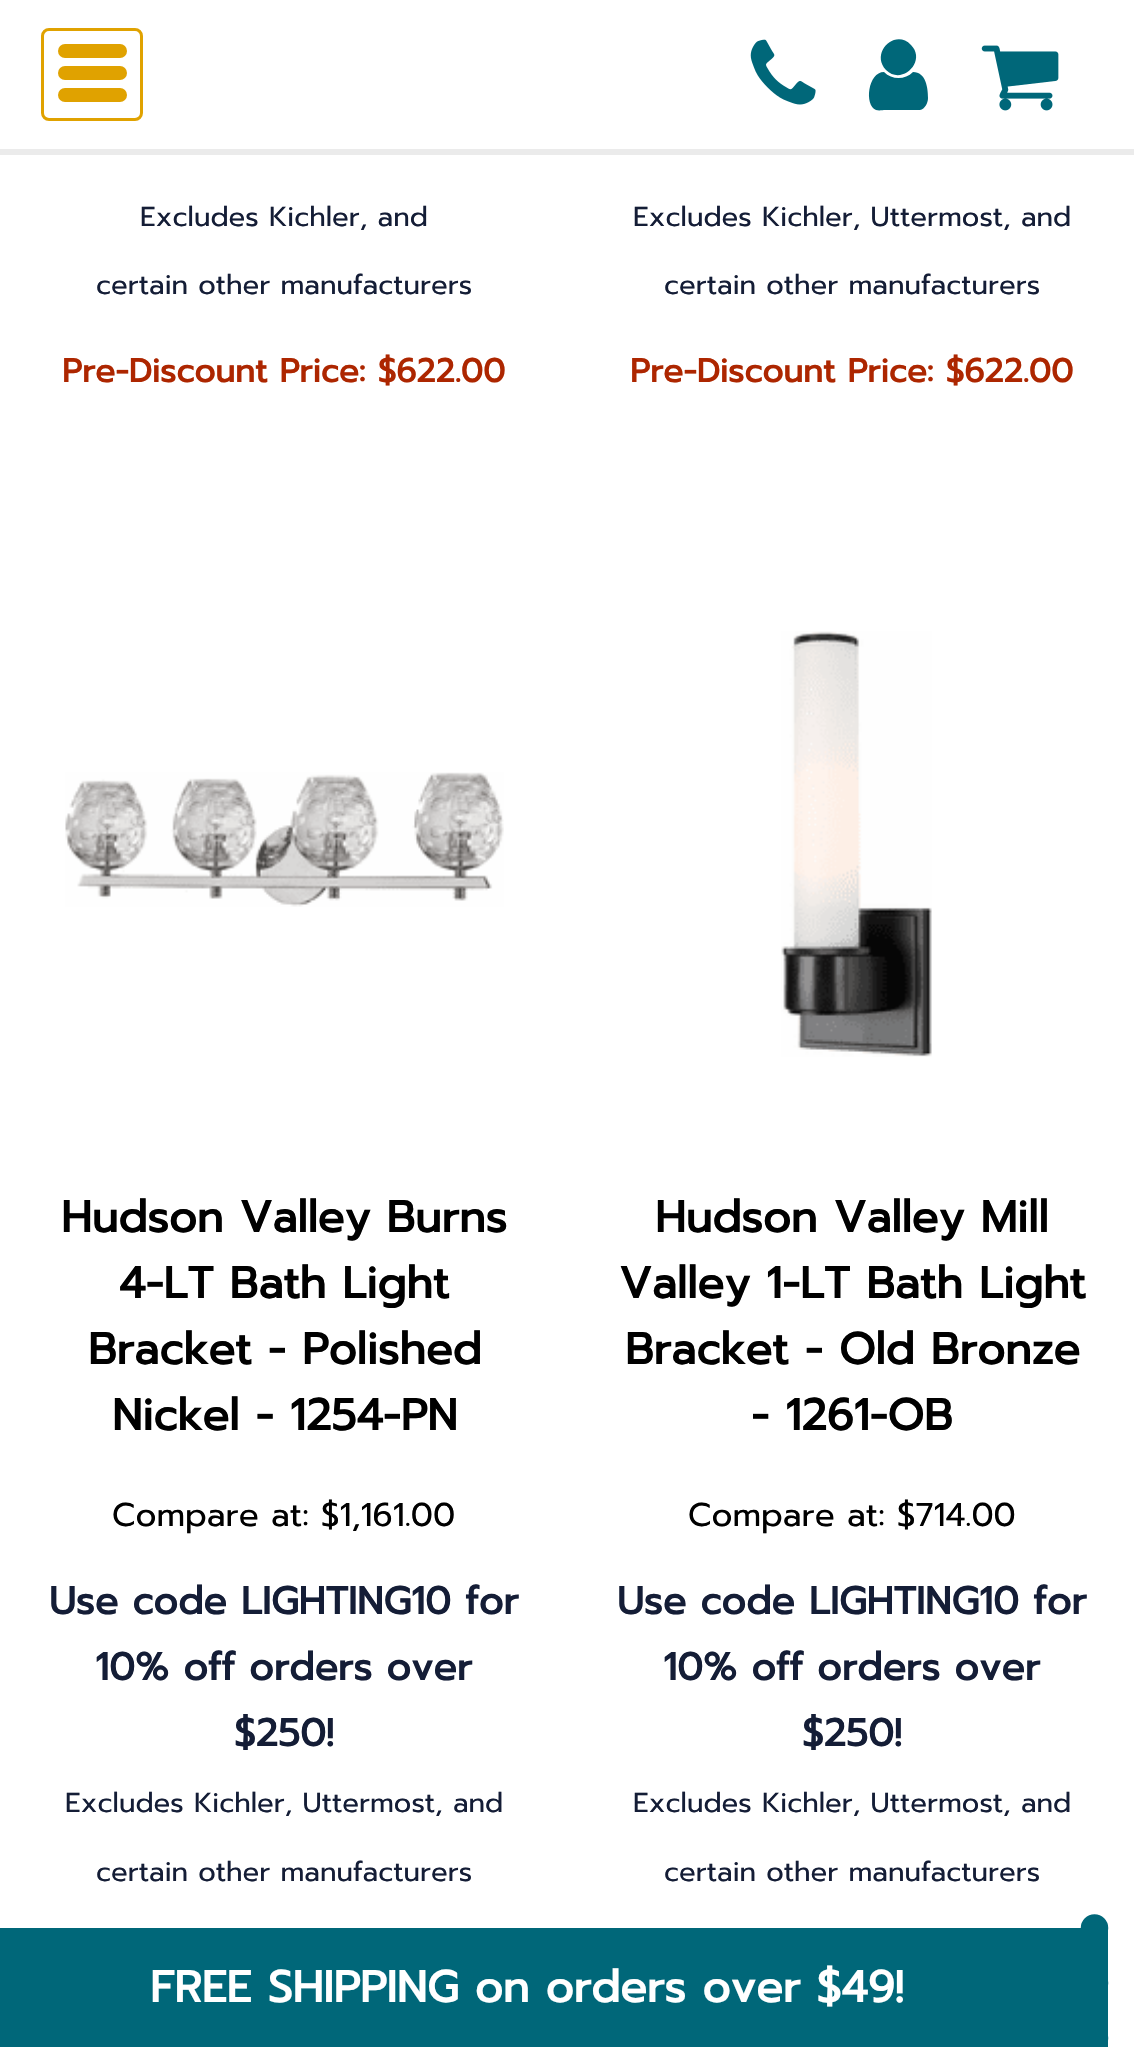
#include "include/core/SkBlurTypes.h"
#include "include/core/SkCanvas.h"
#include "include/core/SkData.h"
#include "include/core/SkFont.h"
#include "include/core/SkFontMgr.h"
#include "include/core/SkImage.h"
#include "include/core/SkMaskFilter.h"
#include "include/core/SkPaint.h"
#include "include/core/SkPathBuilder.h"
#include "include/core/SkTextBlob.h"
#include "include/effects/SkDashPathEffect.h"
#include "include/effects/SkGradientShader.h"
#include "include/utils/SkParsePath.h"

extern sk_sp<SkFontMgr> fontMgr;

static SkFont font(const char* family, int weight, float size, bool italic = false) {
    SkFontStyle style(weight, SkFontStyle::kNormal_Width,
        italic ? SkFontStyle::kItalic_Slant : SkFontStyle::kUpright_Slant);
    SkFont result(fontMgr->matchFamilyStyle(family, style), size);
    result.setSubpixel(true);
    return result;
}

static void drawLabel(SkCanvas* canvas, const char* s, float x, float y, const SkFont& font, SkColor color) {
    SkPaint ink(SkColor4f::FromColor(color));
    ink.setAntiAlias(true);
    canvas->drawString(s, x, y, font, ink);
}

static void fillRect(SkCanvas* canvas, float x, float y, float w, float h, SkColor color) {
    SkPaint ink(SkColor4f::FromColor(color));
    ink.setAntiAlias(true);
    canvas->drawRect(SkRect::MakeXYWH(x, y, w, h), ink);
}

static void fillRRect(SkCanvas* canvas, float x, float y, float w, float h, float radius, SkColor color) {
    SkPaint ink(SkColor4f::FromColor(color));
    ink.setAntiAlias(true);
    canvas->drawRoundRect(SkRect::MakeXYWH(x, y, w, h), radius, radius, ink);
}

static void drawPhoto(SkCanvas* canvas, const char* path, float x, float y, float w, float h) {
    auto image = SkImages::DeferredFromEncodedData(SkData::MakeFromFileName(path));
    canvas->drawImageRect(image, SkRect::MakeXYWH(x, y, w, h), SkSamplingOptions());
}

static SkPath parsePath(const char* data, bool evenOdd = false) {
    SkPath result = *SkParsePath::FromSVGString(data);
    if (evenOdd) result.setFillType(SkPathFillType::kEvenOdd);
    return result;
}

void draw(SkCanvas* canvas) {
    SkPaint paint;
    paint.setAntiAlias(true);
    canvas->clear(0xFFFFFFFF);
    fillRect(canvas, 0, 149, 1134, 6, 0xFFEBEBEB);
    paint.setStroke(true);
    paint.setStrokeWidth(3);
    paint.setColor(0xFFE0A200);
    canvas->drawRoundRect(SkRect::MakeXYWH(42.5f, 29.5f, 99, 90), 6.5f, 6.5f, paint);
    fillRRect(canvas, 58, 44, 69, 14, 7, 0xFFE0A200);
    fillRRect(canvas, 58, 66, 69, 14, 7, 0xFFE0A200);
    fillRRect(canvas, 58, 88, 69, 14, 7, 0xFFE0A200);
    drawPhoto(canvas, "assets/img1.png", 750, 39, 66, 66);
    paint.setStroke(false);
    paint.setColor(0xFF006779);
    canvas->drawPath(parsePath("M928 98C928 103 925 109 920 110H885C883 110 879 111 876 110C864 105 868 72 884 72C892 80 905 80 913 72C926 72 928 88 928 98ZM911 45C927 61 902 86 886 70C870 53 895 28 911 45Z"), paint);
    drawPhoto(canvas, "assets/img2.png", 981, 45, 78, 66);
    SkFont font1 = font("Prompt", 400, 27.5f);
    drawLabel(canvas, "Excludes Kichler, and", 140, 226, font1, 0xFF141D36);
    drawLabel(canvas, "certain other manufacturers", 96, 294, font1, 0xFF141D36);
    SkFont font2 = font("Prompt", 700, 33);
    drawLabel(canvas, "Pre-Discount Price: $622.00", 62, 382, font2, 0xFFAD2600);
    drawLabel(canvas, "Excludes Kichler, Uttermost, and", 633, 226, font1, 0xFF141D36);
    drawLabel(canvas, "certain other manufacturers", 664, 294, font1, 0xFF141D36);
    drawLabel(canvas, "Pre-Discount Price: $622.00", 630, 382, font2, 0xFFAD2600);
    drawPhoto(canvas, "assets/img3.png", 65, 772, 439, 135);
    SkFont font3 = font("Prompt", 700, 44);
    drawLabel(canvas, "Hudson Valley Burns", 61, 1232, font3, 0xFF000000);
    drawLabel(canvas, "4-LT Bath Light", 119, 1298, font3, 0xFF000000);
    drawLabel(canvas, "Bracket - Polished", 88, 1364, font3, 0xFF000000);
    drawLabel(canvas, "Nickel - 1254-PN", 112, 1430, font3, 0xFF000000);
    SkFont font4 = font("Prompt", 400, 33);
    drawLabel(canvas, "Compare at: $1,161.00", 112, 1526, font4, 0xFF000000);
    SkFont font5 = font("Prompt", 700, 38.5f);
    drawLabel(canvas, "Use code LIGHTING10 for", 49, 1614, font5, 0xFF141D36);
    drawLabel(canvas, "10% off orders over", 95, 1680, font5, 0xFF141D36);
    drawLabel(canvas, "$250!", 234, 1746, font5, 0xFF141D36);
    drawLabel(canvas, "Excludes Kichler, Uttermost, and", 65, 1812, font1, 0xFF141D36);
    drawLabel(canvas, "certain other manufacturers", 96, 1881, font1, 0xFF141D36);
    drawPhoto(canvas, "assets/img4.png", 781, 631, 151, 426);
    drawLabel(canvas, "Hudson Valley Mill", 655, 1232, font3, 0xFF000000);
    drawLabel(canvas, "Valley 1-LT Bath Light", 619, 1298, font3, 0xFF000000);
    drawLabel(canvas, "Bracket - Old Bronze", 625, 1364, font3, 0xFF000000);
    drawLabel(canvas, "- 1261-OB", 751, 1430, font3, 0xFF000000);
    drawLabel(canvas, "Compare at: $714.00", 688, 1526, font4, 0xFF000000);
    drawLabel(canvas, "Use code LIGHTING10 for", 617, 1614, font5, 0xFF141D36);
    drawLabel(canvas, "10% off orders over", 663, 1680, font5, 0xFF141D36);
    drawLabel(canvas, "$250!", 802, 1746, font5, 0xFF141D36);
    drawLabel(canvas, "Excludes Kichler, Uttermost, and", 633, 1812, font1, 0xFF141D36);
    drawLabel(canvas, "certain other manufacturers", 664, 1881, font1, 0xFF141D36);
    fillRect(canvas, 0, 1928, 1108, 119, 0xFF006779);
    paint.setStroke(true);
    paint.setStrokeWidth(27.5f);
    paint.setStrokeCap(SkPaint::kRound_Cap);
    paint.setPathEffect(SkDashPathEffect::Make({{0, 55}}, 0));
    canvas->drawPath(parsePath("M1094.5 1928V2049"), paint);
    paint.setPathEffect(nullptr);
    drawLabel(canvas, "FREE SHIPPING on orders over $49!", 150, 2002, font3, 0xFFFFFFFF);
}
